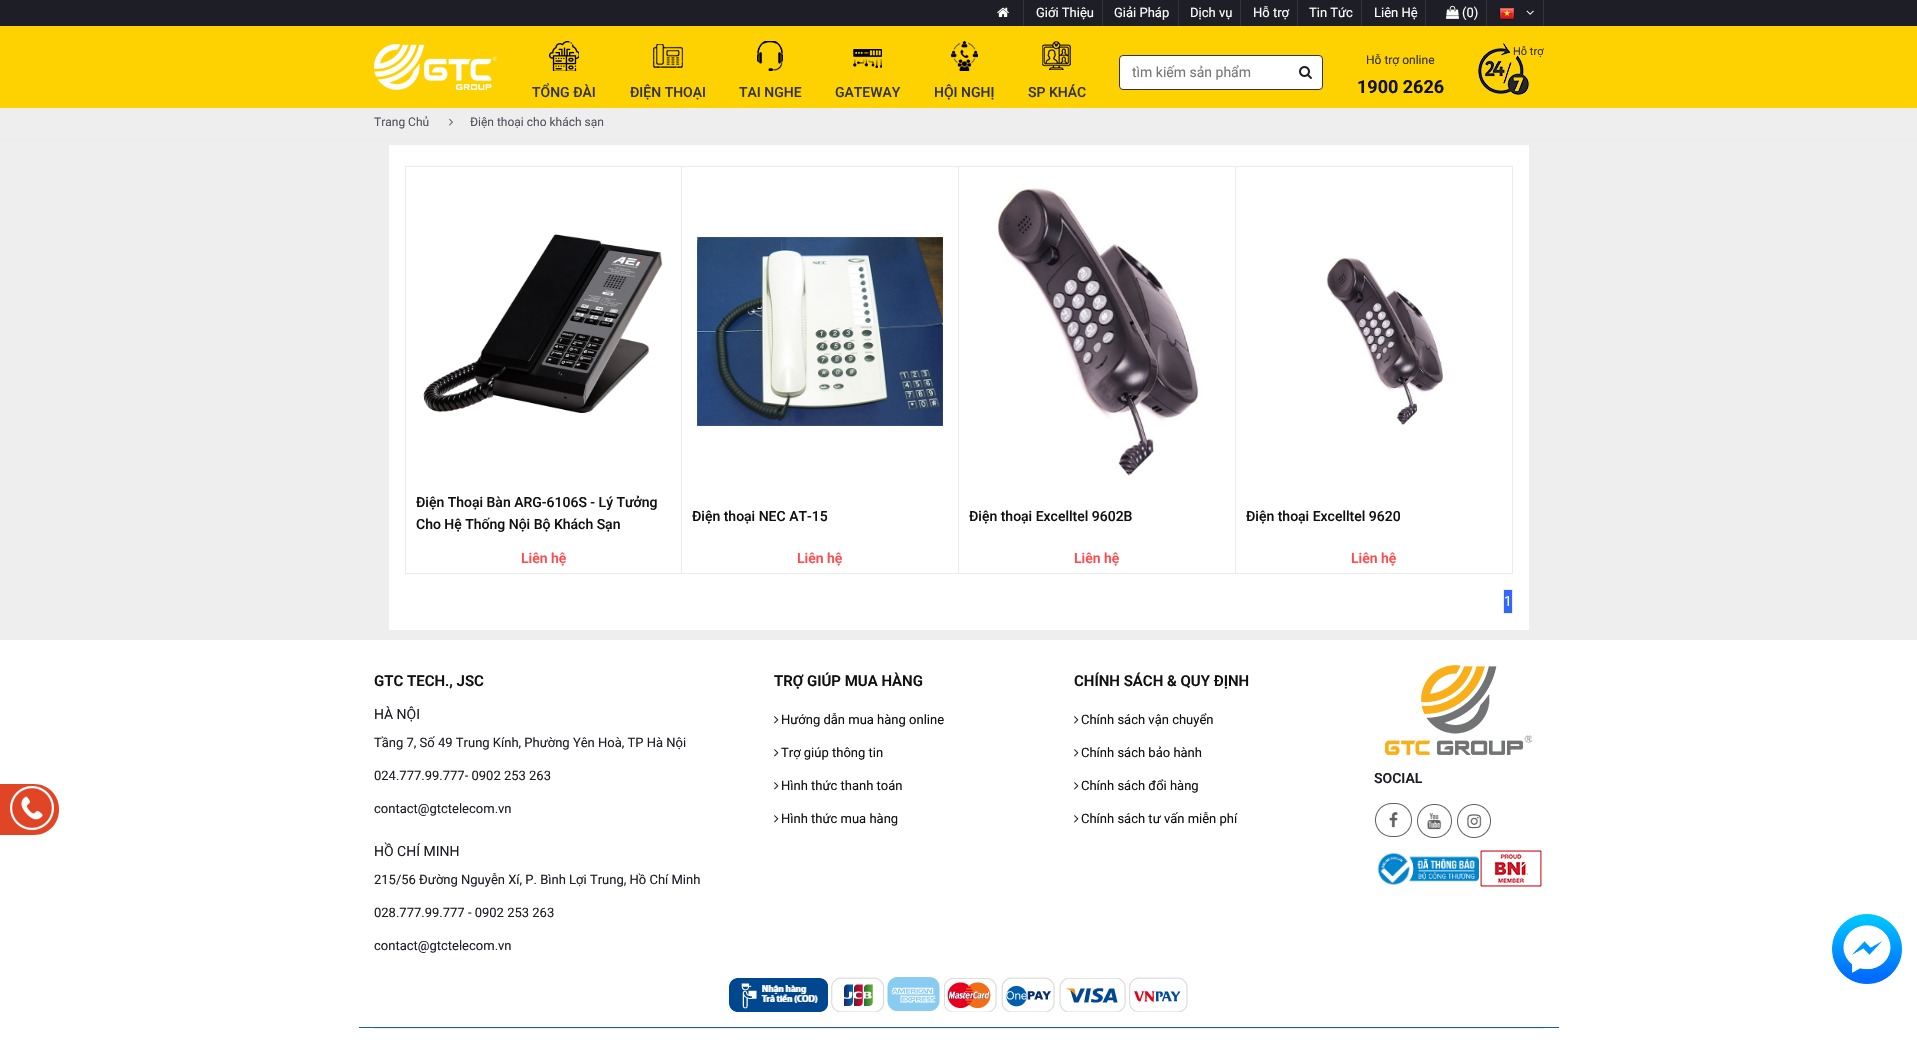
#include "include/core/SkBlurTypes.h"
#include "include/core/SkCanvas.h"
#include "include/core/SkData.h"
#include "include/core/SkFont.h"
#include "include/core/SkFontMgr.h"
#include "include/core/SkImage.h"
#include "include/core/SkMaskFilter.h"
#include "include/core/SkPaint.h"
#include "include/core/SkPathBuilder.h"
#include "include/core/SkTextBlob.h"
#include "include/effects/SkDashPathEffect.h"
#include "include/effects/SkGradientShader.h"
#include "include/utils/SkParsePath.h"

extern sk_sp<SkFontMgr> fontMgr;

static SkFont font(const char* family, int weight, float size, bool italic = false) {
    SkFontStyle style(weight, SkFontStyle::kNormal_Width,
        italic ? SkFontStyle::kItalic_Slant : SkFontStyle::kUpright_Slant);
    SkFont result(fontMgr->matchFamilyStyle(family, style), size);
    result.setSubpixel(true);
    return result;
}

static void drawLabel(SkCanvas* canvas, const char* s, float x, float y, const SkFont& font, SkColor color) {
    SkPaint ink(SkColor4f::FromColor(color));
    ink.setAntiAlias(true);
    canvas->drawString(s, x, y, font, ink);
}

static void fillRect(SkCanvas* canvas, float x, float y, float w, float h, SkColor color) {
    SkPaint ink(SkColor4f::FromColor(color));
    ink.setAntiAlias(true);
    canvas->drawRect(SkRect::MakeXYWH(x, y, w, h), ink);
}

static void drawPhoto(SkCanvas* canvas, const char* path, float x, float y, float w, float h) {
    auto image = SkImages::DeferredFromEncodedData(SkData::MakeFromFileName(path));
    canvas->drawImageRect(image, SkRect::MakeXYWH(x, y, w, h), SkSamplingOptions());
}

static SkPath parsePath(const char* data, bool evenOdd = false) {
    SkPath result = *SkParsePath::FromSVGString(data);
    if (evenOdd) result.setFillType(SkPathFillType::kEvenOdd);
    return result;
}

void draw(SkCanvas* canvas) {
    SkPaint paint;
    paint.setAntiAlias(true);
    canvas->clear(0xFFEEEEEE);
    fillRect(canvas, 0, 640, 1917, 404, 0xFFFFFFFF);
    paint.setColor(0xFFE04526);
    canvas->drawPath(parsePath("M0 784H34C48 784 59 795 59 809V810C59 824 48 835 34 835H0Z"), paint);
    drawPhoto(canvas, "assets/img1.png", 10, 786, 44, 44);
    fillRect(canvas, 0, 0, 1917, 26, 0xFF1E1E27);
    fillRect(canvas, 1023, 0, 1, 26, 0xFF33333B);
    drawPhoto(canvas, "assets/img2.png", 997, 7, 12, 10);
    fillRect(canvas, 1102, 0, 1, 26, 0xFF33333B);
    SkFont font1 = font("Roboto", 400, 13);
    drawLabel(canvas, "Giới Thiệu", 1036, 17, font1, 0xFFFFFFFF);
    fillRect(canvas, 1178, 0, 1, 26, 0xFF33333B);
    drawLabel(canvas, "Giải Pháp", 1114, 17, font1, 0xFFFFFFFF);
    fillRect(canvas, 1240, 0, 1, 26, 0xFF33333B);
    drawLabel(canvas, "Dịch vụ", 1190, 17, font1, 0xFFFFFFFF);
    fillRect(canvas, 1297, 0, 1, 26, 0xFF33333B);
    drawLabel(canvas, "Hỗ trợ", 1253, 17, font1, 0xFFFFFFFF);
    fillRect(canvas, 1361, 0, 1, 26, 0xFF33333B);
    drawLabel(canvas, "Tin Tức", 1309, 17, font1, 0xFFFFFFFF);
    fillRect(canvas, 1425, 0, 1, 26, 0xFF33333B);
    drawLabel(canvas, "Liên Hệ", 1374, 17, font1, 0xFFFFFFFF);
    fillRect(canvas, 1486, 0, 1, 26, 0xFF33333B);
    drawPhoto(canvas, "assets/img3.png", 1446, 5, 13, 14);
    drawLabel(canvas, "(0)", 1462, 17, font1, 0xFFFFFFFF);
    fillRect(canvas, 1543, 0, 1, 26, 0xFF33333B);
    drawPhoto(canvas, "assets/img4.png", 1499, 8, 16, 12);
    drawPhoto(canvas, "assets/img5.png", 1526, 10, 8, 5);
    fillRect(canvas, 0, 26, 1917, 82, 0xFFFED101);
    drawPhoto(canvas, "assets/img6.png", 374, 44, 123, 46);
    drawPhoto(canvas, "assets/img7.png", 1478, 43, 51, 52);
    SkFont font2 = font("Roboto", 400, 11);
    drawLabel(canvas, "Hỗ trợ", 1513, 55, font2, 0xFF333333);
    paint.setColor(0xFFFFFFFF);
    canvas->drawRoundRect(SkRect::MakeXYWH(1119.5f, 55.5f, 203, 34), 3.5f, 3.5f, paint);
    paint.setStroke(true);
    paint.setStrokeWidth(1);
    paint.setColor(0xFF333333);
    canvas->drawRoundRect(SkRect::MakeXYWH(1119.5f, 55.5f, 203, 34), 3.5f, 3.5f, paint);
    SkFont font3 = font("Roboto", 400, 14);
    drawLabel(canvas, "tìm kiếm sản phẩm", 1132, 77, font3, 0xFF777777);
    drawPhoto(canvas, "assets/img8.png", 1299, 66, 13, 13);
    SkFont font4 = font("Roboto", 400, 12);
    drawLabel(canvas, "Hỗ trợ online", 1366, 64, font4, 0xFF333333);
    SkFont font5 = font("Roboto", 700, 18);
    drawLabel(canvas, "1900 2626", 1357, 93, font5, 0xFF111111);
    drawPhoto(canvas, "assets/img9.png", 549, 41, 30, 30);
    SkFont font6 = font("Roboto", 500, 14);
    drawLabel(canvas, "TỔNG ĐÀI", 532, 97, font6, 0xFF333333);
    drawPhoto(canvas, "assets/img10.png", 653, 44, 30, 24);
    drawLabel(canvas, "ĐIỆN THOẠI", 630, 97, font6, 0xFF333333);
    drawPhoto(canvas, "assets/img11.png", 757, 41, 26, 30);
    drawLabel(canvas, "TAI NGHE", 739, 97, font6, 0xFF333333);
    drawPhoto(canvas, "assets/img12.png", 853, 49, 29, 19);
    drawLabel(canvas, "GATEWAY", 835, 97, font6, 0xFF333333);
    drawPhoto(canvas, "assets/img13.png", 951, 41, 27, 30);
    drawLabel(canvas, "HỘI NGHỊ", 934, 97, font6, 0xFF333333);
    drawPhoto(canvas, "assets/img14.png", 1042, 41, 29, 29);
    drawLabel(canvas, "SP KHÁC", 1028, 97, font6, 0xFF333333);
    fillRect(canvas, 0, 139, 1917, 1, 0xFFEBEBEB);
    drawLabel(canvas, "Trang Chủ", 374, 126, font4, 0xFF51545F);
    drawPhoto(canvas, "assets/img15.png", 449, 118, 4, 8);
    drawLabel(canvas, "Điện thoại cho khách sạn", 470, 126, font4, 0xFF51545F);
    fillRect(canvas, 389, 145, 1140, 485, 0xFFFFFFFF);
    fillRect(canvas, 1512, 166, 1, 408, 0xFFEBEBEB);
    fillRect(canvas, 405, 573, 1108, 1, 0xFFEBEBEB);
    fillRect(canvas, 405, 166, 1107, 1, 0xFFEBEBEB);
    fillRect(canvas, 405, 166, 1, 407, 0xFFEBEBEB);
    drawPhoto(canvas, "assets/img16.png", 423, 234, 240, 180);
    drawLabel(canvas, "Điện Thoại Bàn ARG-6106S - Lý Tưởng", 416, 507, font6, 0xFF111111);
    drawLabel(canvas, "Cho Hệ Thống Nội Bộ Khách Sạn", 416, 529, font6, 0xFF111111);
    SkFont font7 = font("Roboto", 600, 14);
    drawLabel(canvas, "Liên hệ", 521, 563, font7, 0xFFFE4C50);
    fillRect(canvas, 681, 166, 1, 407, 0xFFEBEBEB);
    drawPhoto(canvas, "assets/img17.png", 697, 237, 246, 189);
    drawLabel(canvas, "Điện thoại NEC AT-15", 692, 521, font6, 0xFF111111);
    drawLabel(canvas, "Liên hệ", 797, 563, font7, 0xFFFE4C50);
    fillRect(canvas, 958, 166, 1, 407, 0xFFEBEBEB);
    drawPhoto(canvas, "assets/img18.png", 994, 188, 207, 288);
    drawLabel(canvas, "Điện thoại Excelltel 9602B", 969, 521, font6, 0xFF111111);
    drawLabel(canvas, "Liên hệ", 1074, 563, font7, 0xFFFE4C50);
    fillRect(canvas, 1235, 166, 1, 407, 0xFFEBEBEB);
    drawPhoto(canvas, "assets/img19.png", 1326, 257, 117, 168);
    drawLabel(canvas, "Điện thoại Excelltel 9620", 1246, 521, font6, 0xFF111111);
    drawLabel(canvas, "Liên hệ", 1351, 563, font7, 0xFFFE4C50);
    paint.setStroke(false);
    paint.setColor(0xFF3366FF);
    canvas->drawRect(SkRect::MakeXYWH(1503.5f, 589.5f, 9, 24), paint);
    paint.setStroke(true);
    paint.setColor(0xFFECEDEE);
    canvas->drawRect(SkRect::MakeXYWH(1503.5f, 589.5f, 9, 24), paint);
    drawLabel(canvas, "1", 1504, 606, font3, 0xFFFFFFFF);
    SkFont font8 = font("Roboto", 600, 15);
    drawLabel(canvas, "GTC TECH., JSC", 374, 686, font8, 0xFF111111);
    drawLabel(canvas, "HÀ NỘI", 374, 719, font3, 0xFF1E1E27);
    drawLabel(canvas, "Tầng 7, Số 49 Trung Kính, Phường Yên Hoà, TP Hà Nội", 374, 747, font1, 0xFF1E1E27);
    drawLabel(canvas, "024.777.99.777- 0902 253 263", 374, 780, font1, 0xFF1E1E27);
    drawLabel(canvas, "contact@gtctelecom.vn", 374, 813, font1, 0xFF1E1E27);
    drawLabel(canvas, "HỒ CHÍ MINH", 374, 856, font3, 0xFF1E1E27);
    drawLabel(canvas, "215/56 Đường Nguyễn Xí, P. Bình Lợi Trung, Hồ Chí Minh", 374, 884, font1, 0xFF1E1E27);
    drawLabel(canvas, "028.777.99.777 - 0902 253 263", 374, 917, font1, 0xFF1E1E27);
    drawLabel(canvas, "contact@gtctelecom.vn", 374, 950, font1, 0xFF1E1E27);
    drawLabel(canvas, "TRỢ GIÚP MUA HÀNG", 774, 686, font8, 0xFF111111);
    drawPhoto(canvas, "assets/img20.png", 774, 716, 5, 8);
    drawLabel(canvas, "Hướng dẫn mua hàng online", 781, 724, font1, 0xFF111111);
    drawPhoto(canvas, "assets/img20.png", 774, 749, 5, 8);
    drawLabel(canvas, "Trợ giúp thông tin", 781, 757, font1, 0xFF111111);
    drawPhoto(canvas, "assets/img20.png", 774, 782, 5, 8);
    drawLabel(canvas, "Hình thức thanh toán", 781, 790, font1, 0xFF111111);
    drawPhoto(canvas, "assets/img20.png", 774, 815, 5, 8);
    drawLabel(canvas, "Hình thức mua hàng", 781, 823, font1, 0xFF111111);
    drawLabel(canvas, "CHÍNH SÁCH & QUY ĐỊNH", 1074, 686, font8, 0xFF111111);
    drawPhoto(canvas, "assets/img20.png", 1074, 716, 5, 8);
    drawLabel(canvas, "Chính sách vận chuyển", 1081, 724, font1, 0xFF111111);
    drawPhoto(canvas, "assets/img20.png", 1074, 749, 5, 8);
    drawLabel(canvas, "Chính sách bảo hành", 1081, 757, font1, 0xFF111111);
    drawPhoto(canvas, "assets/img20.png", 1074, 782, 5, 8);
    drawLabel(canvas, "Chính sách đổi hàng", 1081, 790, font1, 0xFF111111);
    drawPhoto(canvas, "assets/img20.png", 1074, 815, 5, 8);
    drawLabel(canvas, "Chính sách tư vấn miễn phí", 1081, 823, font1, 0xFF111111);
    drawPhoto(canvas, "assets/img21.png", 1385, 665, 147, 90);
    drawLabel(canvas, "SOCIAL", 1374, 783, font7, 0xFF1E1E27);
    drawPhoto(canvas, "assets/img22.png", 1375, 803, 37, 34);
    drawPhoto(canvas, "assets/img23.png", 1417, 804, 35, 34);
    drawPhoto(canvas, "assets/img24.png", 1457, 804, 34, 34);
    drawPhoto(canvas, "assets/img25.png", 1377, 852, 102, 33);
    drawPhoto(canvas, "assets/img26.png", 1480, 850, 62, 37);
    drawPhoto(canvas, "assets/img27.png", 729, 978, 99, 34);
    drawPhoto(canvas, "assets/img28.png", 831, 977, 53, 35);
    drawPhoto(canvas, "assets/img29.png", 887, 977, 53, 34);
    drawPhoto(canvas, "assets/img30.png", 944, 978, 53, 34);
    drawPhoto(canvas, "assets/img31.png", 1001, 977, 54, 35);
    drawPhoto(canvas, "assets/img32.png", 1059, 978, 67, 34);
    drawPhoto(canvas, "assets/img33.png", 1129, 977, 59, 35);
    fillRect(canvas, 359, 1027, 1200, 1, 0xFF1461A9);
    fillRect(canvas, 374, 1028, 1170, 1, 0xFFF1E7E7);
    drawPhoto(canvas, "assets/img34.png", 1832, 914, 70, 70);
}
